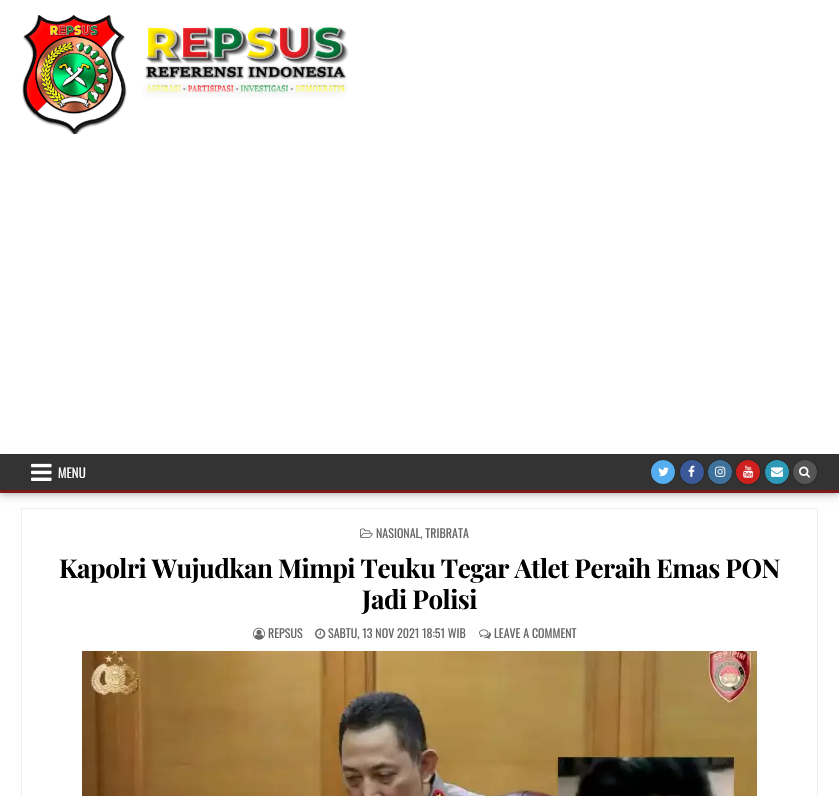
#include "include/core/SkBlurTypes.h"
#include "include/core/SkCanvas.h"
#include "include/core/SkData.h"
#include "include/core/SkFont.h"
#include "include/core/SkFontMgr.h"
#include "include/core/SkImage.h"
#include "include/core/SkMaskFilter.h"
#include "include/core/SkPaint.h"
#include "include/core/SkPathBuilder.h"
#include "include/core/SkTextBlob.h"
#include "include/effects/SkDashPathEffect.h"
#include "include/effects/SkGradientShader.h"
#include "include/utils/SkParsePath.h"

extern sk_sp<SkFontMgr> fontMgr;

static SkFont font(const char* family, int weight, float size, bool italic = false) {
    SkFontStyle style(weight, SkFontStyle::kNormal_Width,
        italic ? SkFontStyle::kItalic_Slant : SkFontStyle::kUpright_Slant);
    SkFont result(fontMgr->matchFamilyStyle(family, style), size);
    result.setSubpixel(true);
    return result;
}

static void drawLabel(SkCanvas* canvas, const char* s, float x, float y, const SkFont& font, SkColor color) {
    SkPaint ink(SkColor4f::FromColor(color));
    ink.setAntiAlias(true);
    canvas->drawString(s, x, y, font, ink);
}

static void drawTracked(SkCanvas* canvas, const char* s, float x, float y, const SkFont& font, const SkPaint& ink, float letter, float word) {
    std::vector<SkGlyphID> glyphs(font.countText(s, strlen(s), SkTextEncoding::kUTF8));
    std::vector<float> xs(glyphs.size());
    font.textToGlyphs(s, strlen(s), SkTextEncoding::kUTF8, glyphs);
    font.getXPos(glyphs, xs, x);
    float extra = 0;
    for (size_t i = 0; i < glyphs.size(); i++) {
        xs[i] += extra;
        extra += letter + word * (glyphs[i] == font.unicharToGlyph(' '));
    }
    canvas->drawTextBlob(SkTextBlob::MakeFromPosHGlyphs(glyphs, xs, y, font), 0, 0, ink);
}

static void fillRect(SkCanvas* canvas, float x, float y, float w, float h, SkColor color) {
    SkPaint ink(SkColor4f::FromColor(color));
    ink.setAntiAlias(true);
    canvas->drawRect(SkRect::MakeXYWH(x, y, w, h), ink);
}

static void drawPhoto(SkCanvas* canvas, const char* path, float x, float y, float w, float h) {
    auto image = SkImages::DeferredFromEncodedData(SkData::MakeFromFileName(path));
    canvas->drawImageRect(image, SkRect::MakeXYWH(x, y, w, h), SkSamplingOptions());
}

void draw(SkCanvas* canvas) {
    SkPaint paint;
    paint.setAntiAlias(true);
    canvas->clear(0xFFFFFFFF);
    paint.setColor(0x1F000000);
    paint.setMaskFilter(SkMaskFilter::MakeBlur(kNormal_SkBlurStyle, 5));
    canvas->drawRect(SkRect::MakeXYWH(0, 456, 839, 39), paint);
    paint.setMaskFilter(nullptr);
    paint.setColor(0x29000000);
    paint.setMaskFilter(SkMaskFilter::MakeBlur(kNormal_SkBlurStyle, 2.5f));
    canvas->drawRect(SkRect::MakeXYWH(0, 456, 839, 39), paint);
    paint.setMaskFilter(nullptr);
    fillRect(canvas, 0, 449, 839, 5, 0xFFFFFFFF);
    drawPhoto(canvas, "assets/img1.png", 22, 15, 327, 119);
    fillRect(canvas, 0, 454, 839, 36, 0xFF333333);
    fillRect(canvas, 0, 490, 839, 3, 0xFF7F181B);
    drawPhoto(canvas, "assets/img2.png", 31, 463, 21, 18);
    SkFont font1 = font("Oswald", 400, 13);
    drawLabel(canvas, "MENU", 58, 478, font1, 0xFFFFFFFF);
    paint.setColor(0x80000000);
    paint.setMaskFilter(SkMaskFilter::MakeBlur(kNormal_SkBlurStyle, 1));
    canvas->drawRoundRect(SkRect::MakeXYWH(651, 460, 24, 24), 12, 12, paint);
    paint.setMaskFilter(nullptr);
    paint.setColor(0xFF55ACEE);
    canvas->drawCircle(663, 472, 12, paint);
    drawPhoto(canvas, "assets/img3.png", 658, 467, 11, 9);
    paint.setColor(0x80000000);
    paint.setMaskFilter(SkMaskFilter::MakeBlur(kNormal_SkBlurStyle, 1));
    canvas->drawRoundRect(SkRect::MakeXYWH(680, 460, 24, 24), 12, 12, paint);
    paint.setMaskFilter(nullptr);
    paint.setColor(0xFF3B5998);
    canvas->drawCircle(692, 472, 12, paint);
    drawPhoto(canvas, "assets/img4.png", 688, 465, 7, 12);
    paint.setColor(0x80000000);
    paint.setMaskFilter(SkMaskFilter::MakeBlur(kNormal_SkBlurStyle, 1));
    canvas->drawRoundRect(SkRect::MakeXYWH(708, 460, 24, 24), 12, 12, paint);
    paint.setMaskFilter(nullptr);
    paint.setColor(0xFF3F729B);
    canvas->drawCircle(720, 472, 12, paint);
    drawPhoto(canvas, "assets/img5.png", 715, 466, 11, 11);
    paint.setColor(0x80000000);
    paint.setMaskFilter(SkMaskFilter::MakeBlur(kNormal_SkBlurStyle, 1));
    canvas->drawRoundRect(SkRect::MakeXYWH(736, 460, 24, 24), 12, 12, paint);
    paint.setMaskFilter(nullptr);
    paint.setColor(0xFFCD201F);
    canvas->drawCircle(748, 472, 12, paint);
    drawPhoto(canvas, "assets/img6.png", 743, 465, 11, 13);
    paint.setColor(0x80000000);
    paint.setMaskFilter(SkMaskFilter::MakeBlur(kNormal_SkBlurStyle, 1));
    canvas->drawRoundRect(SkRect::MakeXYWH(765, 460, 24, 24), 12, 12, paint);
    paint.setMaskFilter(nullptr);
    paint.setColor(0xFF2C9AB7);
    canvas->drawCircle(777, 472, 12, paint);
    drawPhoto(canvas, "assets/img7.png", 771, 467, 12, 10);
    paint.setColor(0x80000000);
    paint.setMaskFilter(SkMaskFilter::MakeBlur(kNormal_SkBlurStyle, 1));
    canvas->drawRoundRect(SkRect::MakeXYWH(793, 460, 24, 24), 12, 12, paint);
    paint.setMaskFilter(nullptr);
    paint.setColor(0xFF555555);
    canvas->drawCircle(805, 472, 12, paint);
    drawPhoto(canvas, "assets/img8.png", 799, 466, 12, 12);
    paint.setStroke(true);
    paint.setStrokeWidth(1);
    paint.setColor(0xFFEEEEEE);
    canvas->drawRect(SkRect::MakeXYWH(21.5f, 508.5f, 796, 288), paint);
    drawPhoto(canvas, "assets/img9.png", 360, 528, 13, 10);
    SkFont font2 = font("Oswald", 400, 12);
    drawLabel(canvas, "NASIONAL, TRIBRATA", 376, 538, font2, 0xFF666666);
    SkFont font3 = font("Playfair Display", 700, 26);
    paint.setStroke(false);
    paint.setColor(0xFF000000);
    drawTracked(canvas, "Kapolri Wujudkan Mimpi Teuku Tegar Atlet Peraih Emas PON", 59, 578, font3, paint, -0.5f, 0);
    drawTracked(canvas, "Jadi Polisi", 362, 609, font3, paint, -0.5f, 0);
    drawPhoto(canvas, "assets/img10.png", 253, 627, 12, 13);
    drawLabel(canvas, "REPSUS", 268, 638, font2, 0xFF666666);
    drawPhoto(canvas, "assets/img11.png", 315, 628, 11, 11);
    drawLabel(canvas, "SABTU, 13 NOV 2021 18:51 WIB", 328, 638, font2, 0xFF666666);
    drawPhoto(canvas, "assets/img12.png", 479, 629, 12, 10);
    drawLabel(canvas, "LEAVE A COMMENT", 494, 638, font2, 0xFF666666);
    drawPhoto(canvas, "assets/img13.png", 82, 651, 675, 145);
}
